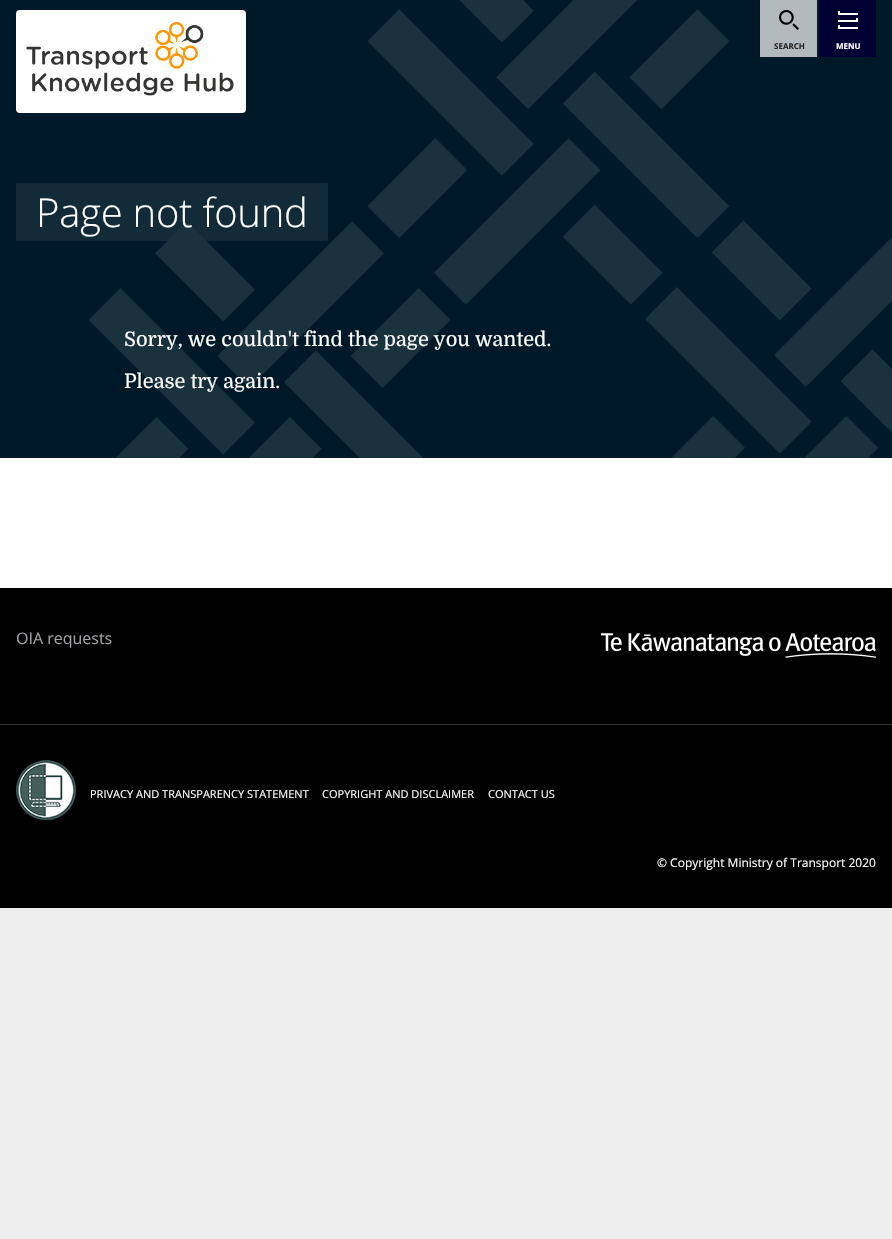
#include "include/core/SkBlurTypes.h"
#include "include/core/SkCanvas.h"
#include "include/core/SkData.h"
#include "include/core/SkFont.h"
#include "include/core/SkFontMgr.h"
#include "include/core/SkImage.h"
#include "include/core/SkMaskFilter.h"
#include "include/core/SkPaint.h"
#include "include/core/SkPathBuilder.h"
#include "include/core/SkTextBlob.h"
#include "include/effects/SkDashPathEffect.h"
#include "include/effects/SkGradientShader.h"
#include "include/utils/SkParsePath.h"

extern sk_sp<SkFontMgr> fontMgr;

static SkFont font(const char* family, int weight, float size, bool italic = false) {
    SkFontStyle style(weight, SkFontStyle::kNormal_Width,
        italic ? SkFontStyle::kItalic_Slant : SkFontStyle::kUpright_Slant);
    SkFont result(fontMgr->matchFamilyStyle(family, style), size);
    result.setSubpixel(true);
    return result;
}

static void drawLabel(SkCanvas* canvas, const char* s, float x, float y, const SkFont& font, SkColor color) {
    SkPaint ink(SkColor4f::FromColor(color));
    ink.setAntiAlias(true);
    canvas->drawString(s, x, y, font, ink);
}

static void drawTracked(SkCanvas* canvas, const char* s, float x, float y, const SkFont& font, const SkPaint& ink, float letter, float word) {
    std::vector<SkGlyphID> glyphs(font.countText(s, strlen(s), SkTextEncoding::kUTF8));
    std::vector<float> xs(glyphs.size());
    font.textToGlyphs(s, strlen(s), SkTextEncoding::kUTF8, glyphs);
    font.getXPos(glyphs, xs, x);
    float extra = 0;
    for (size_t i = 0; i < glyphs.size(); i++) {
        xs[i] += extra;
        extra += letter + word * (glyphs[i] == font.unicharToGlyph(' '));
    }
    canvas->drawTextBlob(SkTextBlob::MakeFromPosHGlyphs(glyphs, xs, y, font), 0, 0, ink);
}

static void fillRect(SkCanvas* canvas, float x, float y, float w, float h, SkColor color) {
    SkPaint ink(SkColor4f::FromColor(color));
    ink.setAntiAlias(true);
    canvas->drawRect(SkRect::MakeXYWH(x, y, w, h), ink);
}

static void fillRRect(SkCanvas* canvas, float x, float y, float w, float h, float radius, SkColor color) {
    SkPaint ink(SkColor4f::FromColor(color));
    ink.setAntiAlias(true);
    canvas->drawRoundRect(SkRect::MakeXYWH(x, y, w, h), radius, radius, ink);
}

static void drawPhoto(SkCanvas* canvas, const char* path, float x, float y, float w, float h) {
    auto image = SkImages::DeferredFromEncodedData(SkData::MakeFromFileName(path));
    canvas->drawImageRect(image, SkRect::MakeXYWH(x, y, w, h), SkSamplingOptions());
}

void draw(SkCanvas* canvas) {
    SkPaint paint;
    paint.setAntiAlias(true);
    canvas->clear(0xFFEEEEEE);
    fillRect(canvas, 0, 0, 892, 458, 0xFF001928);
    drawPhoto(canvas, "assets/img3.png", 89, 0, 803, 458);
    fillRect(canvas, 760, 0, 57, 57, 0xFFB3BABF);
    drawPhoto(canvas, "assets/img1.png", 779, 10, 20, 20);
    SkFont font1 = font("Open Sans", 700, 8);
    drawLabel(canvas, "SEARCH", 774, 49, font1, 0xFF242526);
    fillRect(canvas, 819, 0, 57, 57, 0xFF000033);
    drawPhoto(canvas, "assets/img2.png", 838, 11, 20, 18);
    drawLabel(canvas, "MENU", 836, 49, font1, 0xFFFFFFFF);
    fillRRect(canvas, 16, 10, 230, 103, 4, 0xFFFFFFFF);
    drawPhoto(canvas, "assets/img4.png", 26, 21, 208, 75);
    fillRect(canvas, 16, 183, 312, 58, 0xBF1A303D);
    SkFont font2 = font("Open Sans", 300, 40);
    paint.setColor(0xFFFFFFFF);
    drawTracked(canvas, "Page not found", 36, 227, font2, paint, -0.25f, 0);
    SkFont font3 = font("Domine", 400, 20);
    drawLabel(canvas, "Sorry, we couldn't find the page you wanted.", 124, 346, font3, 0xFFFFFFFF);
    drawLabel(canvas, "Please try again.", 124, 388, font3, 0xFFFFFFFF);
    fillRect(canvas, 0, 458, 892, 130, 0xFFFFFFFF);
    fillRect(canvas, 0, 588, 892, 320, 0xFF000000);
    SkFont font4 = font("Open Sans", 400, 16);
    drawLabel(canvas, "OIA requests", 16, 644, font4, 0xFFA2A4A7);
    drawPhoto(canvas, "assets/img5.png", 601, 633, 275, 25);
    fillRect(canvas, 0, 724, 892, 1, 0xFF333333);
    drawPhoto(canvas, "assets/img6.png", 16, 760, 60, 60);
    SkFont font5 = font("Open Sans", 400, 11);
    drawLabel(canvas, "PRIVACY AND TRANSPARENCY STATEMENT", 90, 798, font5, 0xFFFFFFFF);
    drawLabel(canvas, "COPYRIGHT AND DISCLAIMER", 322, 798, font5, 0xFFFFFFFF);
    drawLabel(canvas, "CONTACT US", 488, 798, font5, 0xFFFFFFFF);
    SkFont font6 = font("Open Sans", 400, 12);
    drawLabel(canvas, "© Copyright Ministry of Transport 2020", 657, 867, font6, 0xFFFFFFFF);
}
